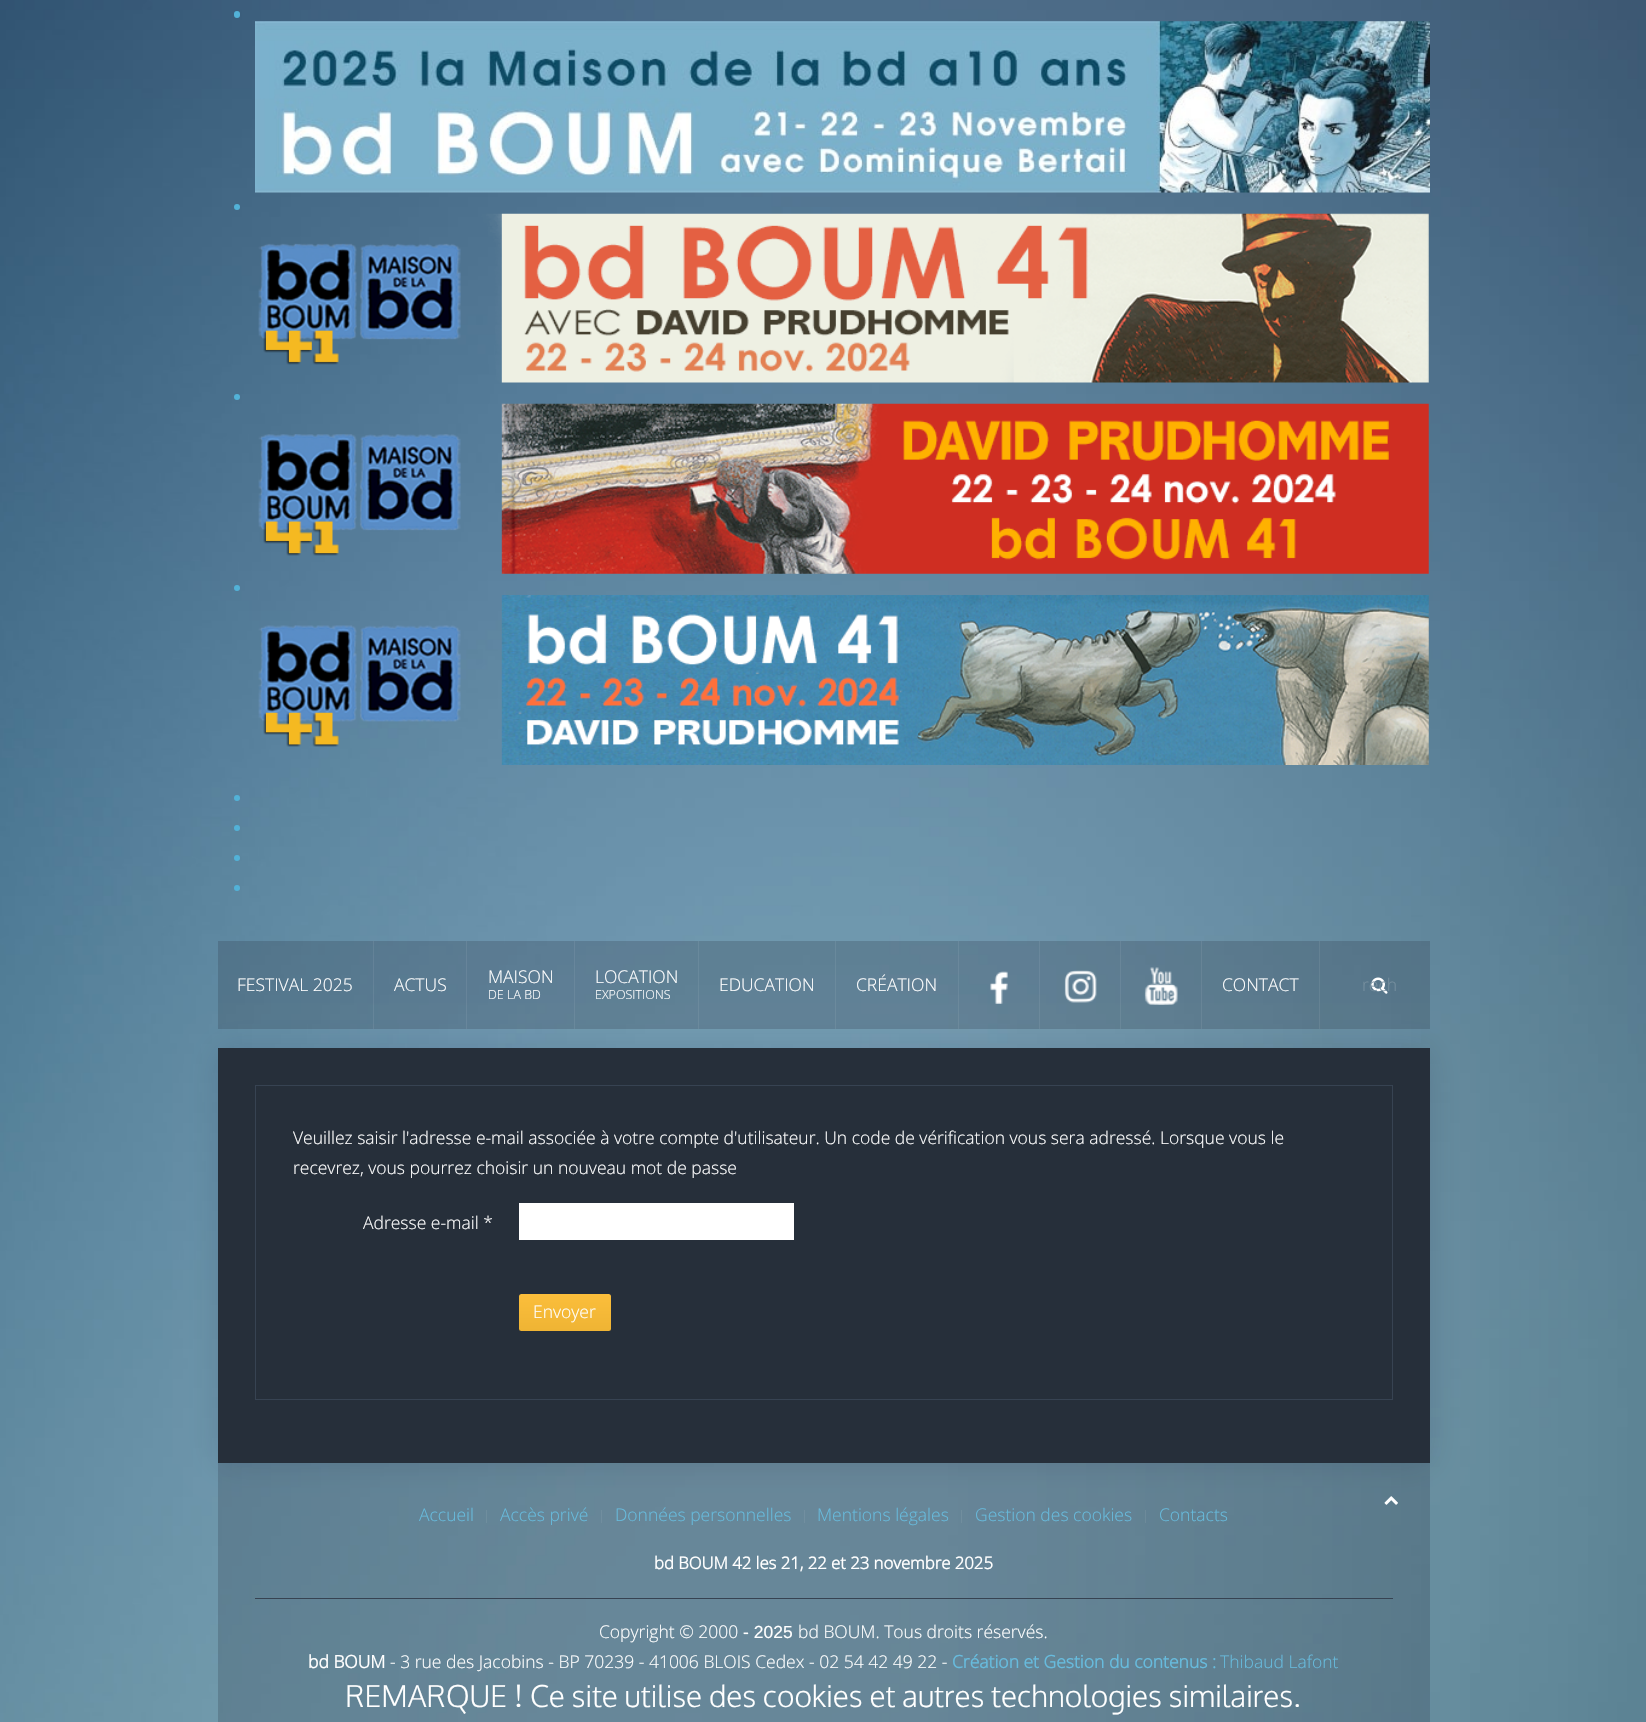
#include "include/core/SkBlurTypes.h"
#include "include/core/SkCanvas.h"
#include "include/core/SkData.h"
#include "include/core/SkFont.h"
#include "include/core/SkFontMgr.h"
#include "include/core/SkImage.h"
#include "include/core/SkMaskFilter.h"
#include "include/core/SkPaint.h"
#include "include/core/SkPathBuilder.h"
#include "include/core/SkTextBlob.h"
#include "include/effects/SkDashPathEffect.h"
#include "include/effects/SkGradientShader.h"
#include "include/utils/SkParsePath.h"

extern sk_sp<SkFontMgr> fontMgr;

static SkFont font(const char* family, int weight, float size, bool italic = false) {
    SkFontStyle style(weight, SkFontStyle::kNormal_Width,
        italic ? SkFontStyle::kItalic_Slant : SkFontStyle::kUpright_Slant);
    SkFont result(fontMgr->matchFamilyStyle(family, style), size);
    result.setSubpixel(true);
    return result;
}

static void drawLabel(SkCanvas* canvas, const char* s, float x, float y, const SkFont& font, SkColor color) {
    SkPaint ink(SkColor4f::FromColor(color));
    ink.setAntiAlias(true);
    canvas->drawString(s, x, y, font, ink);
}

static void fillRect(SkCanvas* canvas, float x, float y, float w, float h, SkColor color) {
    SkPaint ink(SkColor4f::FromColor(color));
    ink.setAntiAlias(true);
    canvas->drawRect(SkRect::MakeXYWH(x, y, w, h), ink);
}

static void fillRRect(SkCanvas* canvas, float x, float y, float w, float h, float radius, SkColor color) {
    SkPaint ink(SkColor4f::FromColor(color));
    ink.setAntiAlias(true);
    canvas->drawRoundRect(SkRect::MakeXYWH(x, y, w, h), radius, radius, ink);
}

static void drawPhoto(SkCanvas* canvas, const char* path, float x, float y, float w, float h) {
    auto image = SkImages::DeferredFromEncodedData(SkData::MakeFromFileName(path));
    canvas->drawImageRect(image, SkRect::MakeXYWH(x, y, w, h), SkSamplingOptions());
}

void draw(SkCanvas* canvas) {
    SkPaint paint;
    paint.setAntiAlias(true);
    canvas->clear(0xFFFFFFFF);
    drawPhoto(canvas, "assets/img1.png", 0, 0, 1646, 1722);
    fillRRect(canvas, 234, 11, 6, 7, 3, 0xFF52B2D8);
    drawPhoto(canvas, "assets/img2.png", 255, 21, 1175, 172);
    paint.setColor(0xFF52B2D8);
    canvas->drawCircle(237, 207, 3, paint);
    drawPhoto(canvas, "assets/img3.png", 258, 213, 1171, 170);
    canvas->drawCircle(237, 397, 3, paint);
    drawPhoto(canvas, "assets/img4.png", 258, 403, 1171, 171);
    canvas->drawCircle(237, 588, 3, paint);
    drawPhoto(canvas, "assets/img5.png", 258, 595, 1171, 170);
    canvas->drawCircle(237, 798, 3, paint);
    canvas->drawCircle(237, 828, 3, paint);
    canvas->drawCircle(237, 858, 3, paint);
    canvas->drawCircle(237, 888, 3, paint);
    fillRect(canvas, 218, 941, 1212, 88, 0x402D3746);
    paint.setColor(0x1F0A142D);
    paint.setMaskFilter(SkMaskFilter::MakeBlur(kNormal_SkBlurStyle, 15.5f));
    canvas->drawRect(SkRect::MakeXYWH(218, 1049, 1212, 415), paint);
    paint.setMaskFilter(nullptr);
    fillRect(canvas, 373, 941, 1, 88, 0x12FFFFFF);
    SkFont font1 = font("Open Sans", 300, 17.5f);
    drawLabel(canvas, "FESTIVAL 2025", 237, 991, font1, 0xFFFFFFFF);
    fillRect(canvas, 466, 941, 1, 88, 0x12FFFFFF);
    drawLabel(canvas, "ACTUS", 394, 991, font1, 0xFFFFFFFF);
    fillRect(canvas, 574, 941, 1, 88, 0x12FFFFFF);
    drawLabel(canvas, "MAISON", 488, 983, font1, 0xFFFFFFFF);
    SkFont font2 = font("Open Sans", 300, 12.5f);
    drawLabel(canvas, "DE LA BD", 488, 999, font2, 0xFFFFFFFF);
    fillRect(canvas, 698, 941, 1, 88, 0x12FFFFFF);
    drawLabel(canvas, "LOCATION", 595, 983, font1, 0xFFFFFFFF);
    drawLabel(canvas, "EXPOSITIONS", 595, 999, font2, 0xFFFFFFFF);
    fillRect(canvas, 835, 941, 1, 88, 0x12FFFFFF);
    drawLabel(canvas, "EDUCATION", 719, 991, font1, 0xFFFFFFFF);
    fillRect(canvas, 958, 941, 1, 88, 0x12FFFFFF);
    drawLabel(canvas, "CRÉATION", 856, 991, font1, 0xFFFFFFFF);
    fillRect(canvas, 1039, 941, 1, 88, 0x12FFFFFF);
    drawPhoto(canvas, "assets/img6.png", 990, 971, 18, 33);
    fillRect(canvas, 1120, 941, 1, 88, 0x12FFFFFF);
    drawPhoto(canvas, "assets/img7.png", 1064, 970, 33, 33);
    fillRect(canvas, 1201, 941, 1, 88, 0x12FFFFFF);
    drawPhoto(canvas, "assets/img8.png", 1144, 967, 34, 38);
    fillRect(canvas, 1319, 941, 1, 88, 0x12FFFFFF);
    drawLabel(canvas, "CONTACT", 1222, 991, font1, 0xFFFFFFFF);
    drawPhoto(canvas, "assets/img9.png", 1371, 977, 17, 17);
    drawLabel(canvas, "rech", 1362, 991, font1, 0xFF768F9F);
    fillRect(canvas, 218, 1048, 1212, 415, 0xFF262F3A);
    paint.setStroke(true);
    paint.setStrokeWidth(1);
    paint.setColor(0xFF374352);
    canvas->drawRect(SkRect::MakeXYWH(255.5f, 1085.5f, 1137, 314), paint);
    drawLabel(canvas, "Veuillez saisir l'adresse e-mail associée à votre compte d'utilisateur. Un code de vérification vous sera adressé. Lorsque vous le", 293, 1144, font1, 0xFFFFFFFF);
    drawLabel(canvas, "recevrez, vous pourrez choisir un nouveau mot de passe", 293, 1174, font1, 0xFFFFFFFF);
    drawLabel(canvas, "Adresse e-mail *", 363, 1229, font1, 0xFFFFFFFF);
    fillRect(canvas, 519, 1203, 275, 37, 0xFFFFFFFF);
    paint.setStroke(false);
    {
        const SkColor colors[] = {0xFFFBBE3B, 0xFFEFB434};
        const float stops[] = {0, 1};
        const SkPoint ends[] = {{565, 1294}, {565, 1331}};
        paint.setShader(SkGradientShader::MakeLinear(ends, colors, stops, 2, SkTileMode::kClamp));
        paint.setAlpha(255);
    }
    canvas->drawRoundRect(SkRect::MakeXYWH(519, 1294, 92, 37), 2.5f, 2.5f, paint);
    drawLabel(canvas, "Envoyer", 533, 1318, font1, 0xFFFFFFFF);
    fillRect(canvas, 218, 1463, 1212, 259, 0x402D3746);
    drawPhoto(canvas, "assets/img10.png", 1384, 1496, 14, 9);
    drawLabel(canvas, "Accueil", 419, 1521, font1, 0xFF67BBDD);
    fillRect(canvas, 486, 1510, 1, 13, 0xFF6F8E9E);
    drawLabel(canvas, "Accès privé", 500, 1521, font1, 0xFF67BBDD);
    fillRect(canvas, 601, 1510, 1, 13, 0xFF718E9F);
    drawLabel(canvas, "Données personnelles", 615, 1521, font1, 0xFF67BBDD);
    fillRect(canvas, 804, 1510, 1, 13, 0xFF728FA0);
    drawLabel(canvas, "Mentions légales", 817, 1521, font1, 0xFF67BBDD);
    fillRect(canvas, 961, 1510, 1, 13, 0xFF718E9E);
    drawLabel(canvas, "Gestion des cookies", 975, 1521, font1, 0xFF67BBDD);
    fillRect(canvas, 1145, 1510, 1, 13, 0xFF6D8A9A);
    drawLabel(canvas, "Contacts", 1159, 1521, font1, 0xFF67BBDD);
    SkFont font3 = font("Open Sans", 700, 16.7f);
    drawLabel(canvas, "bd BOUM 42 les 21, 22 et 23 novembre 2025", 654, 1569, font3, 0xFFFFFFFF);
    fillRect(canvas, 255, 1598, 1138, 1, 0xFF374352);
    drawLabel(canvas, "Copyright © 2000", 599, 1638, font1, 0xFFFFFFFF);
    SkFont font4 = font("Liberation Sans", 400, 17.5f);
    drawLabel(canvas, "- 2025", 743, 1638, font4, 0xFFFFFFFF);
    drawLabel(canvas, "bd BOUM. Tous droits réservés.", 798, 1638, font1, 0xFFFFFFFF);
    SkFont font5 = font("Open Sans", 700, 17.5f);
    drawLabel(canvas, "bd BOUM", 308, 1668, font5, 0xFFFFFFFF);
    drawLabel(canvas, "- 3 rue des Jacobins - BP 70239 - 41006 BLOIS Cedex - 02 54 42 49 22 -", 390, 1668, font1, 0xFFFFFFFF);
    drawLabel(canvas, "Création et Gestion du contenus :", 952, 1668, font5, 0xFF67BBDD);
    drawLabel(canvas, "Thibaud Lafont", 1220, 1668, font1, 0xFF67BBDD);
    SkFont font6 = font("Oxygen", 300, 30);
    drawLabel(canvas, "REMARQUE ! Ce site utilise des cookies et autres technologies similaires.", 345, 1707, font6, 0xFFFFFFFF);
}
